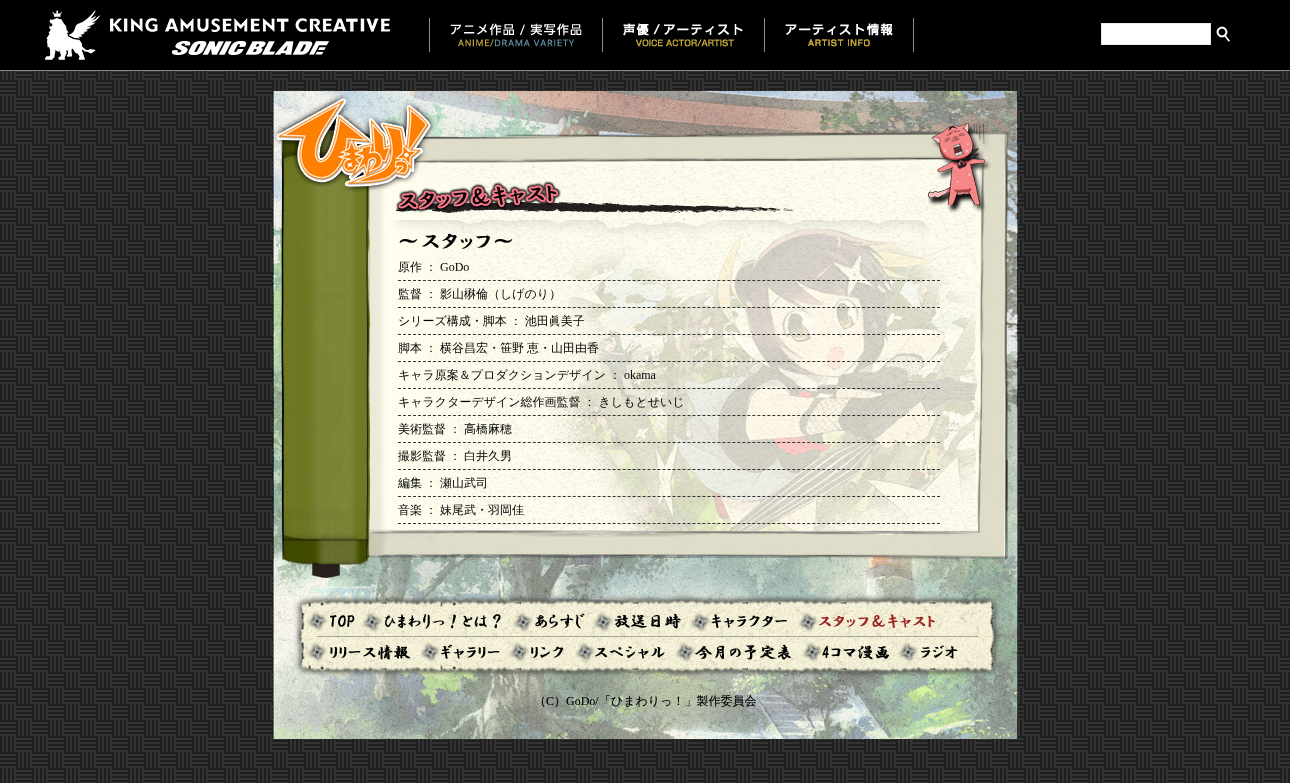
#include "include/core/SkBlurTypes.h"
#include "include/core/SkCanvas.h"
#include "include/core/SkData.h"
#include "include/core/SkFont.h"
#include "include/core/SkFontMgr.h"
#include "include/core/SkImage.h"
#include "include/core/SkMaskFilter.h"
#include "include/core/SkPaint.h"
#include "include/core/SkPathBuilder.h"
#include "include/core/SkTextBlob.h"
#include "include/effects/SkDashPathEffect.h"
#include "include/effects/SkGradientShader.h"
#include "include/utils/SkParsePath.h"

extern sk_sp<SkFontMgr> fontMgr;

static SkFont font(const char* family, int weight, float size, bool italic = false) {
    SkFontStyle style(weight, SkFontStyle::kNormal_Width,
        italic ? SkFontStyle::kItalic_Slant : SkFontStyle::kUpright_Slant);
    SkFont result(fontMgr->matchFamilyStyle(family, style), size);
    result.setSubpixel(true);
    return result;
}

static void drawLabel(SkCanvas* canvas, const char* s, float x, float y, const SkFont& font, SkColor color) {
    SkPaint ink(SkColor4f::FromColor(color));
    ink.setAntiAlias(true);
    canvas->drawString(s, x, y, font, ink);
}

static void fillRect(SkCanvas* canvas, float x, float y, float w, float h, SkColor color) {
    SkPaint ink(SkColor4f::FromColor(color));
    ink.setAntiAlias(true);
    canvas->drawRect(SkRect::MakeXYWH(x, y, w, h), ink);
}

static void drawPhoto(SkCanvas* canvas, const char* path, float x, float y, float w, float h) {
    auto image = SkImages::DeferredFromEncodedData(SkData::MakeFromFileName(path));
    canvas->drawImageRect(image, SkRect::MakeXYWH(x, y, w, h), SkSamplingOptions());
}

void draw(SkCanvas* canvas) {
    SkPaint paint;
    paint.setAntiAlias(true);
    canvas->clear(0xFFFFFFFF);
    drawPhoto(canvas, "assets/img1.png", 0, 71, 1290, 712);
    fillRect(canvas, 0, 0, 1290, 70, 0xFF000000);
    fillRect(canvas, 0, 70, 1290, 1, 0xFF8C8C8C);
    drawPhoto(canvas, "assets/img2.png", 45, 10, 345, 50);
    fillRect(canvas, 913, 18, 1, 34, 0xFF8C8C8C);
    fillRect(canvas, 429, 18, 1, 34, 0xFF8C8C8C);
    drawPhoto(canvas, "assets/img3.png", 450, 23, 132, 24);
    fillRect(canvas, 602, 18, 1, 34, 0xFF8C8C8C);
    drawPhoto(canvas, "assets/img4.png", 623, 23, 120, 24);
    fillRect(canvas, 764, 18, 1, 34, 0xFF8C8C8C);
    drawPhoto(canvas, "assets/img5.png", 785, 23, 108, 24);
    paint.setColor(0xFFFFFFFF);
    canvas->drawRect(SkRect::MakeXYWH(1101.5f, 23.5f, 109, 21), paint);
    paint.setStroke(true);
    paint.setStrokeWidth(1);
    paint.setColor(0xFFE6E6E6);
    canvas->drawRect(SkRect::MakeXYWH(1101.5f, 23.5f, 109, 21), paint);
    drawPhoto(canvas, "assets/img6.png", 1216, 26, 14, 16);
    drawPhoto(canvas, "assets/img7.png", 273, 91, 119, 84);
    drawPhoto(canvas, "assets/img8.png", 392, 91, 583, 84);
    drawPhoto(canvas, "assets/img9.png", 975, 91, 43, 84);
    drawPhoto(canvas, "assets/img10.png", 273, 175, 119, 45);
    drawPhoto(canvas, "assets/img11.png", 392, 175, 583, 45);
    drawPhoto(canvas, "assets/img12.png", 975, 175, 43, 45);
    drawPhoto(canvas, "assets/img13.png", 273, 220, 119, 307);
    drawPhoto(canvas, "assets/img14.png", 392, 220, 583, 307);
    drawPhoto(canvas, "assets/img15.png", 398, 233, 542, 291);
    drawPhoto(canvas, "assets/img16.png", 975, 220, 43, 307);
    drawPhoto(canvas, "assets/img17.png", 273, 527, 119, 64);
    drawPhoto(canvas, "assets/img18.png", 392, 527, 583, 64);
    drawPhoto(canvas, "assets/img19.png", 975, 527, 43, 64);
    drawPhoto(canvas, "assets/img20.png", 273, 591, 745, 14);
    drawPhoto(canvas, "assets/img21.png", 273, 605, 33, 29);
    drawPhoto(canvas, "assets/img22.png", 306, 605, 53, 29);
    drawPhoto(canvas, "assets/img23.png", 359, 605, 148, 29);
    drawPhoto(canvas, "assets/img24.png", 507, 605, 84, 29);
    drawPhoto(canvas, "assets/img25.png", 591, 605, 97, 29);
    drawPhoto(canvas, "assets/img26.png", 688, 605, 109, 29);
    drawPhoto(canvas, "assets/img27.png", 797, 605, 168, 29);
    drawPhoto(canvas, "assets/img28.png", 965, 605, 53, 29);
    drawPhoto(canvas, "assets/img29.png", 273, 634, 745, 5);
    drawPhoto(canvas, "assets/img30.png", 273, 639, 33, 29);
    drawPhoto(canvas, "assets/img31.png", 306, 639, 110, 29);
    drawPhoto(canvas, "assets/img32.png", 416, 639, 91, 29);
    drawPhoto(canvas, "assets/img33.png", 507, 639, 65, 29);
    drawPhoto(canvas, "assets/img34.png", 572, 639, 99, 29);
    drawPhoto(canvas, "assets/img35.png", 671, 639, 126, 29);
    drawPhoto(canvas, "assets/img36.png", 797, 639, 99, 29);
    drawPhoto(canvas, "assets/img37.png", 896, 639, 69, 29);
    drawPhoto(canvas, "assets/img38.png", 965, 639, 53, 29);
    drawPhoto(canvas, "assets/img39.png", 273, 668, 745, 10);
    drawPhoto(canvas, "assets/img40.png", 273, 678, 745, 61);
    SkFont font1 = font("WenQuanYi Zen Hei", 500, 12);
    drawLabel(canvas, "（", 534, 705, font1, 0xFF000000);
    SkFont font2 = font("Liberation Serif", 400, 12);
    drawLabel(canvas, "C", 546, 705, font2, 0xFF000000);
    drawLabel(canvas, "）", 554, 705, font1, 0xFF000000);
    drawLabel(canvas, "GoDo/", 566, 705, font2, 0xFF000000);
    drawLabel(canvas, "「ひまわりっ！」製作委員会", 599, 705, font1, 0xFF000000);
}
